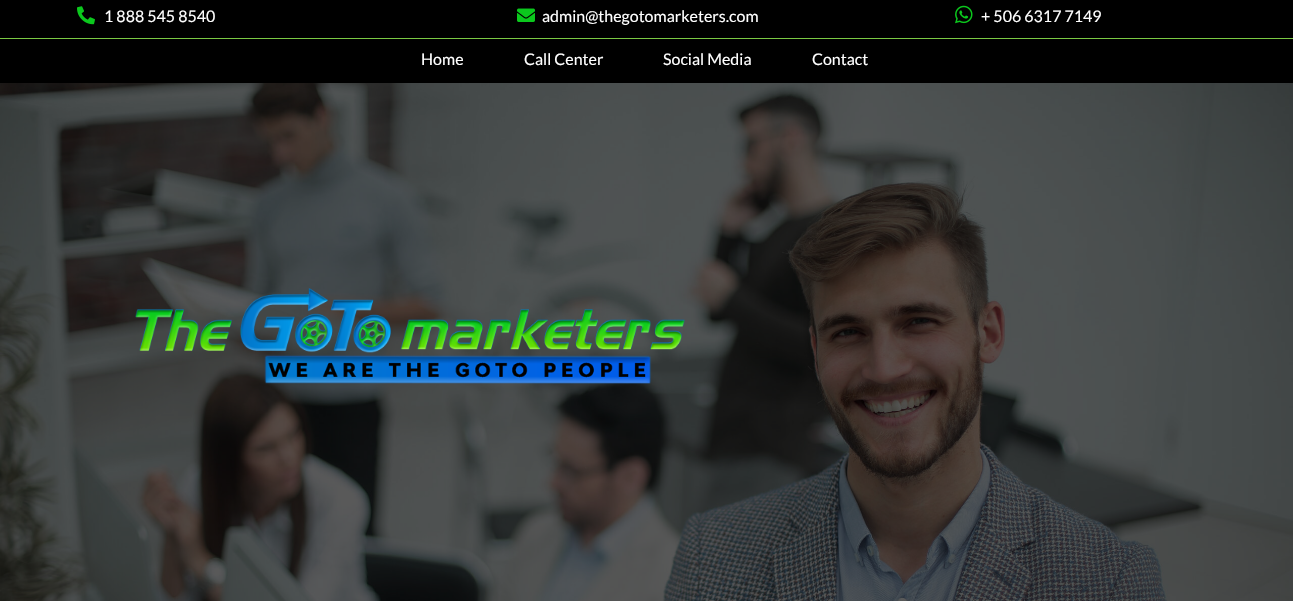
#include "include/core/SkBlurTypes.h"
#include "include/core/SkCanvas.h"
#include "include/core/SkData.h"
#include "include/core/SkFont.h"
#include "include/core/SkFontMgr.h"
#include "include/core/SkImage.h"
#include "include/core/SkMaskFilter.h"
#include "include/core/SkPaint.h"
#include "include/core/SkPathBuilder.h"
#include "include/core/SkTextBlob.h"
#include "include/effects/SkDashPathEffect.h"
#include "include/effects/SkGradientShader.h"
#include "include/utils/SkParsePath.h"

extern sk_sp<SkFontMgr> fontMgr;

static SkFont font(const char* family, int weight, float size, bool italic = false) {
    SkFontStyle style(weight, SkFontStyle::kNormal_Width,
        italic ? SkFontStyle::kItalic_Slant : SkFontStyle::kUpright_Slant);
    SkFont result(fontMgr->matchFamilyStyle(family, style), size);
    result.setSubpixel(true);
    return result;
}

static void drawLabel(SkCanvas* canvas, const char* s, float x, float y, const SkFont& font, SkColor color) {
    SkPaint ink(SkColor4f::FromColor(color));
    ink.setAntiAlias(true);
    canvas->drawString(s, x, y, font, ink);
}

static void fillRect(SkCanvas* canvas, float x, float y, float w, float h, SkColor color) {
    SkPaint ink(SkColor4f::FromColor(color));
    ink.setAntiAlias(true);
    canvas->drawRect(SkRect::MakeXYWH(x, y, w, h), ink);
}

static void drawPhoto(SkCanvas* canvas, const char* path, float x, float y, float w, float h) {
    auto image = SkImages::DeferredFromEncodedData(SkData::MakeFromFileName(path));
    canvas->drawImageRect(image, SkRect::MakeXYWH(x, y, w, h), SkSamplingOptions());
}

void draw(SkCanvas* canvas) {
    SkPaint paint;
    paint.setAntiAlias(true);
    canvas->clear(0xFFFFFFFF);
    fillRect(canvas, 0, 0, 1293, 38, 0xFF000000);
    fillRect(canvas, 0, 38, 1293, 1, 0xFF7AC943);
    drawPhoto(canvas, "assets/img1.png", 77, 6, 18, 19);
    SkFont font1 = font("Lato", 400, 16);
    drawLabel(canvas, "1 888 545 8540", 104, 22, font1, 0xFFFFFFFF);
    drawPhoto(canvas, "assets/img2.png", 517, 8, 18, 14);
    drawLabel(canvas, "admin@thegotomarketers.com", 542, 22, font1, 0xFFFFFFFF);
    drawPhoto(canvas, "assets/img3.png", 955, 5, 18, 19);
    drawLabel(canvas, "+ 506 6317 7149", 981, 22, font1, 0xFFFFFFFF);
    fillRect(canvas, 0, 39, 1293, 44, 0xFF000000);
    drawLabel(canvas, "Home", 421, 65, font1, 0xFFFFFFFF);
    drawLabel(canvas, "Call Center", 524, 65, font1, 0xFFFFFFFF);
    drawLabel(canvas, "Social Media", 663, 65, font1, 0xFFFFFFFF);
    drawLabel(canvas, "Contact", 812, 65, font1, 0xFFFFFFFF);
    drawPhoto(canvas, "assets/img4.png", 0, 83, 1293, 518);
    drawPhoto(canvas, "assets/img5.png", 135, 288, 550, 96);
}
